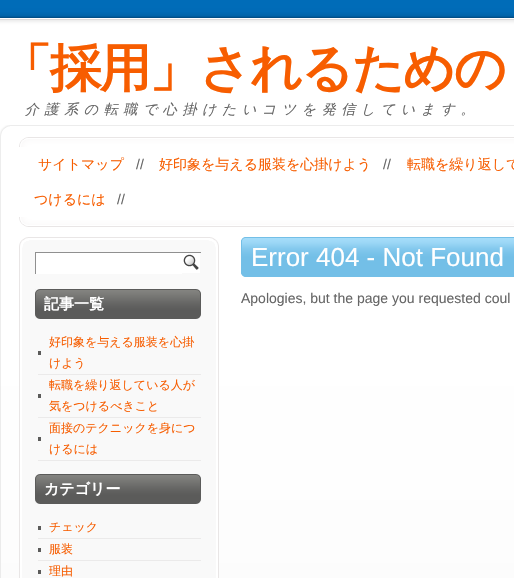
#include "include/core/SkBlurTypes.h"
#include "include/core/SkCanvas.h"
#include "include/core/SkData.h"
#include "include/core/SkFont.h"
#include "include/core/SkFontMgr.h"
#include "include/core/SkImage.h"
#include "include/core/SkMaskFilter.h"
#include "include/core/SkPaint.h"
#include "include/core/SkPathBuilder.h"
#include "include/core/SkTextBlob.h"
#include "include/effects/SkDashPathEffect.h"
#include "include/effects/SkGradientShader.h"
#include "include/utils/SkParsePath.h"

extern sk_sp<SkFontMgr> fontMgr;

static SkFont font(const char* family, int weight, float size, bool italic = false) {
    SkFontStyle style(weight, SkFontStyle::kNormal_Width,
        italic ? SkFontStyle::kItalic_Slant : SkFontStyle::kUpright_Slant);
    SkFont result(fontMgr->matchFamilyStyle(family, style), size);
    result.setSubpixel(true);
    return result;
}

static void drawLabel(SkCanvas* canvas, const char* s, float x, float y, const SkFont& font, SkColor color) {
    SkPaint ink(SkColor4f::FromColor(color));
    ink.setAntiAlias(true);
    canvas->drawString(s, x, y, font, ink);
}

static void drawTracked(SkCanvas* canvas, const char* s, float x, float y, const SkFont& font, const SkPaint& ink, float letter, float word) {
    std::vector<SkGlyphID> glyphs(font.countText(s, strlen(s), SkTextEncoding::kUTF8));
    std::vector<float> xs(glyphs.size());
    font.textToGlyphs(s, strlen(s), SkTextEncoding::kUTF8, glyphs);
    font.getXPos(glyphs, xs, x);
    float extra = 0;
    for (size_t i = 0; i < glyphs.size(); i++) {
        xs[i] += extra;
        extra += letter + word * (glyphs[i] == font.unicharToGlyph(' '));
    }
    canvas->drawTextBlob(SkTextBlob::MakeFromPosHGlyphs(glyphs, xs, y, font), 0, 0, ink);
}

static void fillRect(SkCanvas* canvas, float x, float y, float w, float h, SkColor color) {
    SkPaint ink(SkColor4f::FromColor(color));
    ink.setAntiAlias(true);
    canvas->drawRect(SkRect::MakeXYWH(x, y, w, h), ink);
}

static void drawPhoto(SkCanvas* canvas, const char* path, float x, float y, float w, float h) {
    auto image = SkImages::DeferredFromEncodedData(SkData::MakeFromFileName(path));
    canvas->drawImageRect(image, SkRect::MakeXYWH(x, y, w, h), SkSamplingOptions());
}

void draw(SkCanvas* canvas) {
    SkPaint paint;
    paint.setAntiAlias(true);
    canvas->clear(0xFFFFFFFF);
    drawPhoto(canvas, "assets/img1.png", 0, 0, 514, 578);
    SkFont font1 = font("WenQuanYi Zen Hei", 700, 51.75f);
    paint.setColor(0xFFF75D00);
    drawTracked(canvas, "「採用」されるための", 0, 86, font1, paint, -2, 0);
    SkFont font2 = font("WenQuanYi Zen Hei", 500, 14, true);
    paint.setColor(0xFF666666);
    drawTracked(canvas, "介護系の転職で心掛けたいコツを発信しています。", 25, 114, font2, paint, 5.6f, 0);
    drawPhoto(canvas, "assets/img2.png", 0, 125, 514, 12);
    fillRect(canvas, 0, 137, 1, 441, 0x3DB5B5B5);
    drawPhoto(canvas, "assets/img3.png", 19, 137, 495, 10);
    SkFont font3 = font("WenQuanYi Zen Hei", 500, 14);
    drawLabel(canvas, "サイトマップ", 38, 169, font3, 0xFFF75D00);
    SkFont font4 = font("Liberation Sans", 400, 14);
    drawLabel(canvas, "//", 136, 169, font4, 0xFF666666);
    drawLabel(canvas, "好印象を与える服装を心掛けよう", 159, 169, font3, 0xFFF75D00);
    drawLabel(canvas, "//", 383, 169, font4, 0xFF666666);
    drawLabel(canvas, "転職を繰り返して", 407, 169, font3, 0xFFF75D00);
    drawLabel(canvas, "つけるには", 34, 204, font3, 0xFFF75D00);
    drawLabel(canvas, "//", 117, 204, font4, 0xFF666666);
    drawPhoto(canvas, "assets/img4.png", 19, 217, 495, 10);
    drawPhoto(canvas, "assets/img5.png", 245, 237, 269, 40);
    drawPhoto(canvas, "assets/img6.png", 241, 237, 4, 40);
    SkFont font5 = font("Liberation Sans", 400, 26);
    drawLabel(canvas, "Error 404 - Not Found", 251, 266, font5, 0xFFFFFFFF);
    drawLabel(canvas, "Apologies, but the page you requested coul", 241, 303, font4, 0xFF666666);
    drawPhoto(canvas, "assets/img7.png", 19, 237, 200, 12);
    drawPhoto(canvas, "assets/img8.png", 19, 249, 200, 329);
    fillRect(canvas, 35, 252, 166, 1, 0xFF909090);
    fillRect(canvas, 36, 253, 146, 21, 0xFFFFFFFF);
    fillRect(canvas, 35, 253, 1, 21, 0xFF909090);
    drawPhoto(canvas, "assets/img9.png", 182, 253, 18, 20);
    drawPhoto(canvas, "assets/img10.png", 35, 289, 161, 30);
    drawPhoto(canvas, "assets/img11.png", 35, 289, 5, 30);
    SkFont font6 = font("WenQuanYi Zen Hei", 700, 15);
    drawLabel(canvas, "記事一覧", 44, 309, font6, 0xFFFFFFFF);
    drawPhoto(canvas, "assets/img12.png", 196, 289, 5, 30);
    fillRect(canvas, 38, 374, 163, 1, 0xFFEBEAEA);
    fillRect(canvas, 38, 351, 3, 4, 0xFF5B5B5A);
    SkFont font7 = font("WenQuanYi Zen Hei", 500, 12);
    drawLabel(canvas, "好印象を与える服装を心掛", 49, 346, font7, 0xFFF75D00);
    drawLabel(canvas, "けよう", 49, 367, font7, 0xFFF75D00);
    fillRect(canvas, 38, 417, 163, 1, 0xFFEBEAEA);
    fillRect(canvas, 38, 394, 3, 4, 0xFF5B5B5A);
    drawLabel(canvas, "転職を繰り返している人が", 49, 389, font7, 0xFFF75D00);
    drawLabel(canvas, "気をつけるべきこと", 49, 410, font7, 0xFFF75D00);
    fillRect(canvas, 38, 460, 163, 1, 0xFFEBEAEA);
    fillRect(canvas, 38, 437, 3, 4, 0xFF5B5B5A);
    drawLabel(canvas, "面接のテクニックを身につ", 49, 432, font7, 0xFFF75D00);
    drawLabel(canvas, "けるには", 49, 453, font7, 0xFFF75D00);
    drawPhoto(canvas, "assets/img10.png", 35, 474, 161, 30);
    drawPhoto(canvas, "assets/img11.png", 35, 474, 5, 30);
    drawLabel(canvas, "カテゴリー", 44, 494, font6, 0xFFFFFFFF);
    drawPhoto(canvas, "assets/img12.png", 196, 474, 5, 30);
    fillRect(canvas, 38, 538, 163, 1, 0xFFEBEAEA);
    fillRect(canvas, 38, 526, 3, 4, 0xFF5B5B5A);
    drawLabel(canvas, "チェック", 49, 531, font7, 0xFFF75D00);
    fillRect(canvas, 38, 560, 163, 1, 0xFFEBEAEA);
    fillRect(canvas, 38, 548, 3, 4, 0xFF5B5B5A);
    drawLabel(canvas, "服装", 49, 553, font7, 0xFFF75D00);
    fillRect(canvas, 38, 570, 3, 4, 0xFF5B5B5A);
    drawLabel(canvas, "理由", 49, 575, font7, 0xFFF75D00);
}
